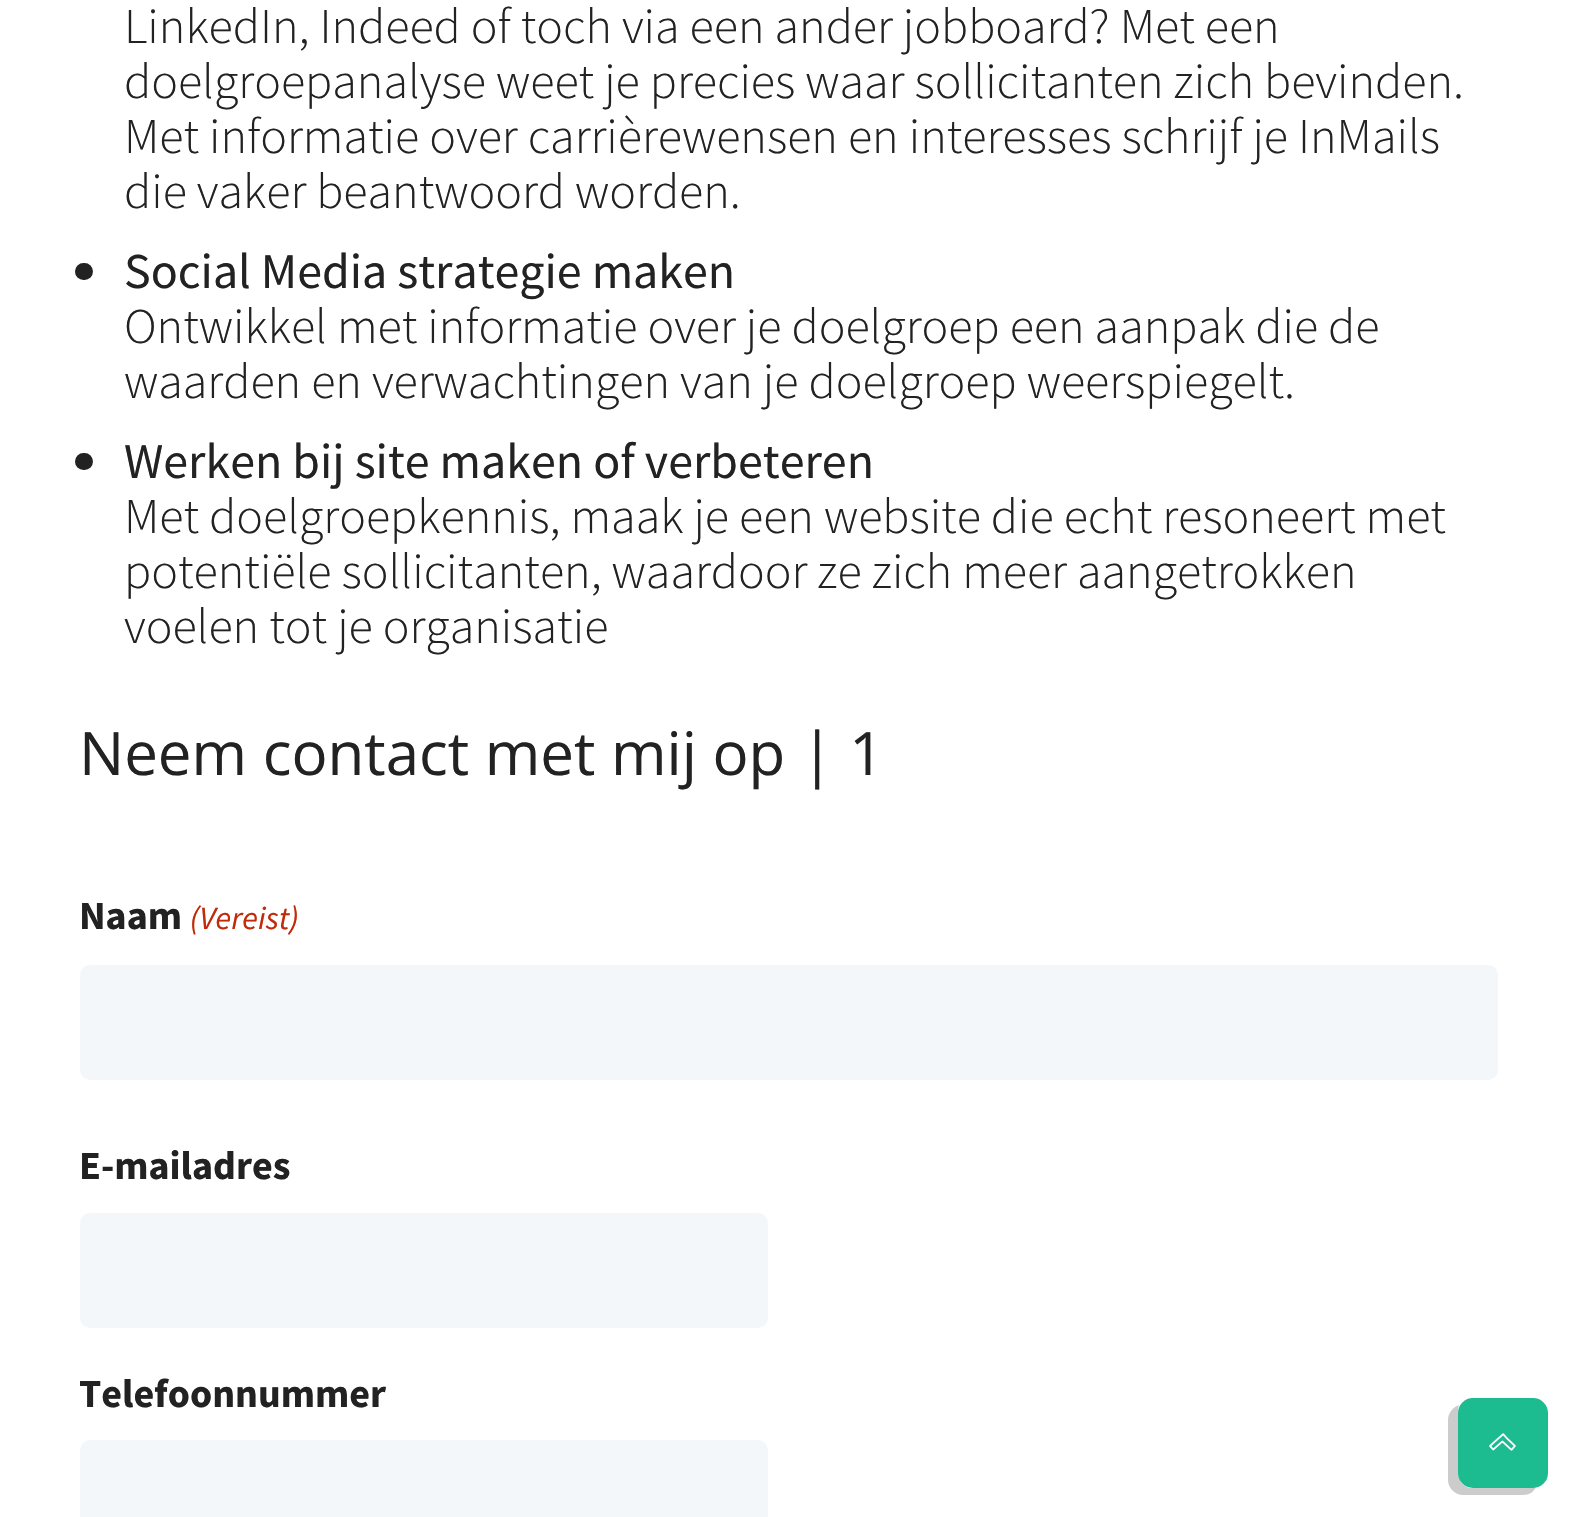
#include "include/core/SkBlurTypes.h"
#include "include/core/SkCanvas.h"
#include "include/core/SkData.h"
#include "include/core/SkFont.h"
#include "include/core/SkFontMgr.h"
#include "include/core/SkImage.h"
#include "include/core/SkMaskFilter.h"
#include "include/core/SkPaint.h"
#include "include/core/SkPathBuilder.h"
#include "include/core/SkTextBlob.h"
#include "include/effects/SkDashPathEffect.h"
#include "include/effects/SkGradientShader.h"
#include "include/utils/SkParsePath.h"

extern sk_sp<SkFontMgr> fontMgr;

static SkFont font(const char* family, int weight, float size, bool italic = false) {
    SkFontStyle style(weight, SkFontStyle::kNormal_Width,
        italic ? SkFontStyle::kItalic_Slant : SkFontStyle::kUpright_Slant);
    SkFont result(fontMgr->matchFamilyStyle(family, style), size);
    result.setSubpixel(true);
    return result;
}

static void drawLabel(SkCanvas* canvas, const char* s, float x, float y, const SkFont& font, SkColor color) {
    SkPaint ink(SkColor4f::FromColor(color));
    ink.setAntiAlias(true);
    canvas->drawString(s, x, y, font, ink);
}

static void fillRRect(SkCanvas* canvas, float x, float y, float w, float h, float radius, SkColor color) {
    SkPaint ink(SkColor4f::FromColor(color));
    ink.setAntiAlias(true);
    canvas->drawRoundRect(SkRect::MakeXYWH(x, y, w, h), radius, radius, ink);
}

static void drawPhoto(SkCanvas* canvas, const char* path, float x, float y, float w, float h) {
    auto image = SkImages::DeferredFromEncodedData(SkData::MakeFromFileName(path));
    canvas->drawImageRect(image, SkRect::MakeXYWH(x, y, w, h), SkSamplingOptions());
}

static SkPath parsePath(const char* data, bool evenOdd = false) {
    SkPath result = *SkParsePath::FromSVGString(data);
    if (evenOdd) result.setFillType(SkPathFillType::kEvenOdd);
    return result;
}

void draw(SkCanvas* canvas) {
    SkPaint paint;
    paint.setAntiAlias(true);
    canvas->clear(0xFFFFFFFF);
    SkFont font1 = font("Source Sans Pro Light", 300, 50);
    drawLabel(canvas, "LinkedIn, Indeed of toch via een ander jobboard? Met een", 124, 43, font1, 0xFF222222);
    drawLabel(canvas, "doelgroepanalyse weet je precies waar sollicitanten zich bevinden.", 124, 98, font1, 0xFF222222);
    drawLabel(canvas, "Met informatie over carrièrewensen en interesses schrijf je InMails", 124, 153, font1, 0xFF222222);
    drawLabel(canvas, "die vaker beantwoord worden.", 124, 208, font1, 0xFF222222);
    fillRRect(canvas, 75, 263, 18, 17, 8.5f, 0xFF222222);
    SkFont font2 = font("Source Sans Pro", 400, 50);
    drawLabel(canvas, "Social Media strategie maken", 124, 288, font2, 0xFF222222);
    drawLabel(canvas, "Ontwikkel met informatie over je doelgroep een aanpak die de", 124, 343, font1, 0xFF222222);
    drawLabel(canvas, "waarden en verwachtingen van je doelgroep weerspiegelt.", 124, 398, font1, 0xFF222222);
    fillRRect(canvas, 75, 453, 18, 17, 8.5f, 0xFF222222);
    drawLabel(canvas, "Werken bij site maken of verbeteren", 124, 478, font2, 0xFF222222);
    drawLabel(canvas, "Met doelgroepkennis, maak je een website die echt resoneert met", 124, 533, font1, 0xFF222222);
    drawLabel(canvas, "potentiële sollicitanten, waardoor ze zich meer aangetrokken", 124, 588, font1, 0xFF222222);
    drawLabel(canvas, "voelen tot je organisatie", 124, 643, font1, 0xFF222222);
    SkFont font3 = font("Open Sans", 400, 60);
    drawLabel(canvas, "Neem contact met mij op | 1", 79, 775, font3, 0xFF222222);
    SkFont font4 = font("Source Sans Pro", 700, 40);
    drawLabel(canvas, "Naam", 79, 929, font4, 0xFF222222);
    SkFont font5 = font("Source Sans Pro", 400, 32.5f, true);
    drawLabel(canvas, "(Vereist)", 190, 929, font5, 0xFFC02B0A);
    fillRRect(canvas, 80, 965, 1418, 115, 10, 0xFFF4F7F9);
    drawLabel(canvas, "E-mailadres", 79, 1179, font4, 0xFF222222);
    fillRRect(canvas, 80, 1213, 688, 115, 10, 0xFFF4F7F9);
    drawLabel(canvas, "Telefoonnummer", 79, 1407, font4, 0xFF222222);
    fillRRect(canvas, 80, 1440, 688, 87, 10, 0xFFF4F7F9);
    paint.setColor(0xFFCCCCCC);
    canvas->drawPath(parsePath("M1459 1405C1453 1407 1448 1413 1448 1420V1480C1448 1488 1455 1495 1463 1495H1523C1529 1495 1534 1492 1536 1487L1532 1488H1472C1464 1488 1458 1481 1458 1472V1412C1458 1410 1458 1408 1459 1405Z"), paint);
    fillRRect(canvas, 1458, 1398, 90, 90, 15, 0xFF1DBB90);
    drawPhoto(canvas, "assets/img1.png", 1489, 1433, 27, 18);
}
